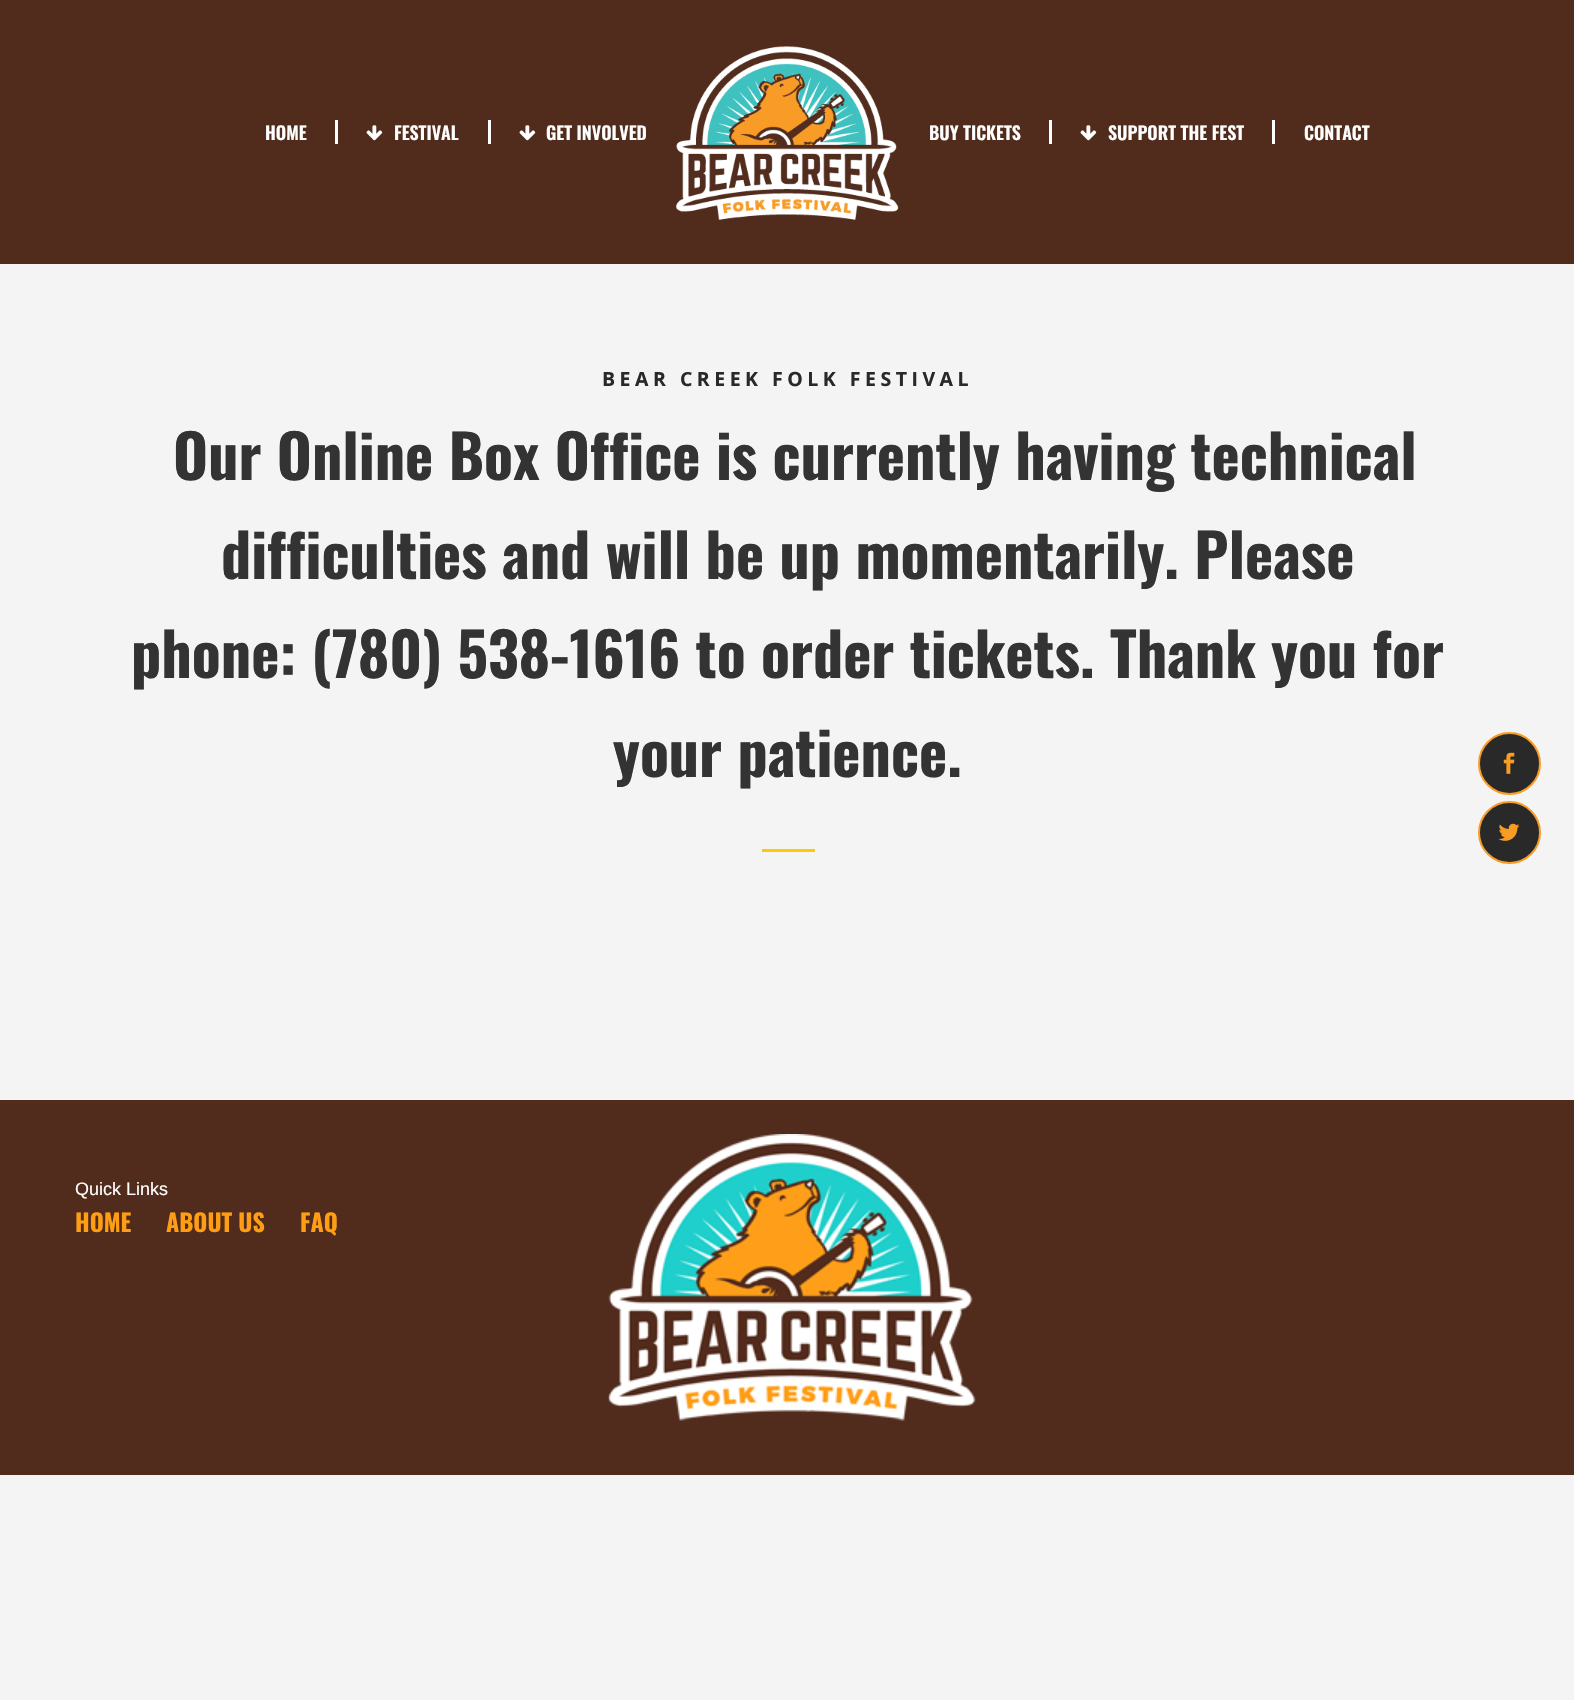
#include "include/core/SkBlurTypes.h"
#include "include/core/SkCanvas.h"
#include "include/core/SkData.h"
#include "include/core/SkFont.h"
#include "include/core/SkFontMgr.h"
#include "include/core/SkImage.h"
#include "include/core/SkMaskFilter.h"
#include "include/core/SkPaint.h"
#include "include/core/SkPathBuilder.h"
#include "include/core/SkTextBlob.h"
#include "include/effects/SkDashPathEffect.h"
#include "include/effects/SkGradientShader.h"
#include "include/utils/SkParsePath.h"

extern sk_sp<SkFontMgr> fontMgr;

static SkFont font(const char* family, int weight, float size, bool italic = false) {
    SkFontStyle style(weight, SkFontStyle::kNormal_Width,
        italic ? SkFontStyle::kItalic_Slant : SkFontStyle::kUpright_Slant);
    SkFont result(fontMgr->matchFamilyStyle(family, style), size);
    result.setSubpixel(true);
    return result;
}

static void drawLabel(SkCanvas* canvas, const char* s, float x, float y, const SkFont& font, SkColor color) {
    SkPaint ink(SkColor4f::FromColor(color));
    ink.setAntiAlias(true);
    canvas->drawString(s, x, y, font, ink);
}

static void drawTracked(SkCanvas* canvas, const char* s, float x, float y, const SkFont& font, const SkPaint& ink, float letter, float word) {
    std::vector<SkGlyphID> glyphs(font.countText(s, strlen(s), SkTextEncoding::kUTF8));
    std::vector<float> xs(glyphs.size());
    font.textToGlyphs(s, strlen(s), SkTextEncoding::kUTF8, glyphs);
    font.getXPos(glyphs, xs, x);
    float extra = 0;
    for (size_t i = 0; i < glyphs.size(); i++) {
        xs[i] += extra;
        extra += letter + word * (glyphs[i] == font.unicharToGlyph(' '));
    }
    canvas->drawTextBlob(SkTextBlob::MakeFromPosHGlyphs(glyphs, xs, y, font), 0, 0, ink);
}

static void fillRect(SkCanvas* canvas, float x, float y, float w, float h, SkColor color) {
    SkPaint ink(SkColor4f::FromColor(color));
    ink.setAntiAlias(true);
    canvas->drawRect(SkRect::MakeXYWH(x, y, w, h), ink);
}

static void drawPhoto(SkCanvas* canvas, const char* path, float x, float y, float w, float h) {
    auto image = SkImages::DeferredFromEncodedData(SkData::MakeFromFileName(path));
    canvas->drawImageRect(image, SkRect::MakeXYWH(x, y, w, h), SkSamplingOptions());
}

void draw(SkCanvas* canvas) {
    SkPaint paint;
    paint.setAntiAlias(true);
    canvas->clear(0xFFF4F4F4);
    fillRect(canvas, 0, 0, 1574, 264, 0xFF512B1C);
    fillRect(canvas, 335, 120, 3, 24, 0xFFFFFFFF);
    SkFont font1 = font("Oswald", 600, 18);
    drawLabel(canvas, "HOME", 265, 140, font1, 0xFFFFFFFF);
    fillRect(canvas, 488, 120, 3, 24, 0xFFFFFFFF);
    drawPhoto(canvas, "assets/img1.png", 366, 125, 17, 16);
    drawLabel(canvas, "FESTIVAL", 394, 140, font1, 0xFFFFFFFF);
    drawPhoto(canvas, "assets/img1.png", 519, 125, 17, 16);
    drawLabel(canvas, "GET INVOLVED", 546, 140, font1, 0xFFFFFFFF);
    drawPhoto(canvas, "assets/img2.png", 675, 46, 224, 174);
    fillRect(canvas, 1049, 120, 3, 24, 0xFFFFFFFF);
    drawLabel(canvas, "BUY TICKETS", 929, 140, font1, 0xFFFFFFFF);
    fillRect(canvas, 1272, 120, 3, 24, 0xFFFFFFFF);
    drawPhoto(canvas, "assets/img1.png", 1080, 125, 17, 16);
    drawLabel(canvas, "SUPPORT THE FEST", 1108, 140, font1, 0xFFFFFFFF);
    drawLabel(canvas, "CONTACT", 1304, 140, font1, 0xFFFFFFFF);
    SkFont font2 = font("Open Sans", 700, 19.5f);
    paint.setColor(0xFF2A2929);
    drawTracked(canvas, "BEAR CREEK FOLK FESTIVAL", 602, 386, font2, paint, 4.5f, 0);
    SkFont font3 = font("Oswald", 700, 60);
    drawLabel(canvas, "Our Online Box Office is currently having technical", 173, 480, font3, 0xFF333333);
    drawLabel(canvas, "difficulties and will be up momentarily. Please", 221, 579, font3, 0xFF333333);
    drawLabel(canvas, "phone: (780) 538-1616 to order tickets. Thank you for", 131, 678, font3, 0xFF333333);
    drawLabel(canvas, "your patience.", 613, 777, font3, 0xFF333333);
    fillRect(canvas, 762, 849, 53, 3, 0xFFFFCA04);
    canvas->drawCircle(1509.5f, 763.5f, 30.5f, paint);
    paint.setStroke(true);
    paint.setStrokeWidth(2);
    paint.setColor(0xFFF89C24);
    canvas->drawCircle(1509.5f, 763.5f, 30.5f, paint);
    drawPhoto(canvas, "assets/img3.png", 1503, 752, 12, 22);
    paint.setStroke(false);
    paint.setColor(0xFF2A2929);
    canvas->drawCircle(1509.5f, 832.5f, 30.5f, paint);
    paint.setStroke(true);
    paint.setColor(0xFFF89C24);
    canvas->drawCircle(1509.5f, 832.5f, 30.5f, paint);
    drawPhoto(canvas, "assets/img4.png", 1498, 823, 22, 18);
    fillRect(canvas, 0, 1100, 1574, 375, 0xFF512B1C);
    SkFont font4 = font("Liberation Sans", 400, 18);
    drawLabel(canvas, "Quick Links", 75, 1195, font4, 0xFFFFFFFF);
    SkFont font5 = font("Oswald", 700, 24);
    drawLabel(canvas, "HOME", 75, 1232, font5, 0xFFFF9E15);
    drawLabel(canvas, "ABOUT US", 166, 1232, font5, 0xFFFF9E15);
    drawLabel(canvas, "FAQ", 300, 1232, font5, 0xFFFF9E15);
    drawPhoto(canvas, "assets/img5.png", 608, 1134, 368, 287);
}
